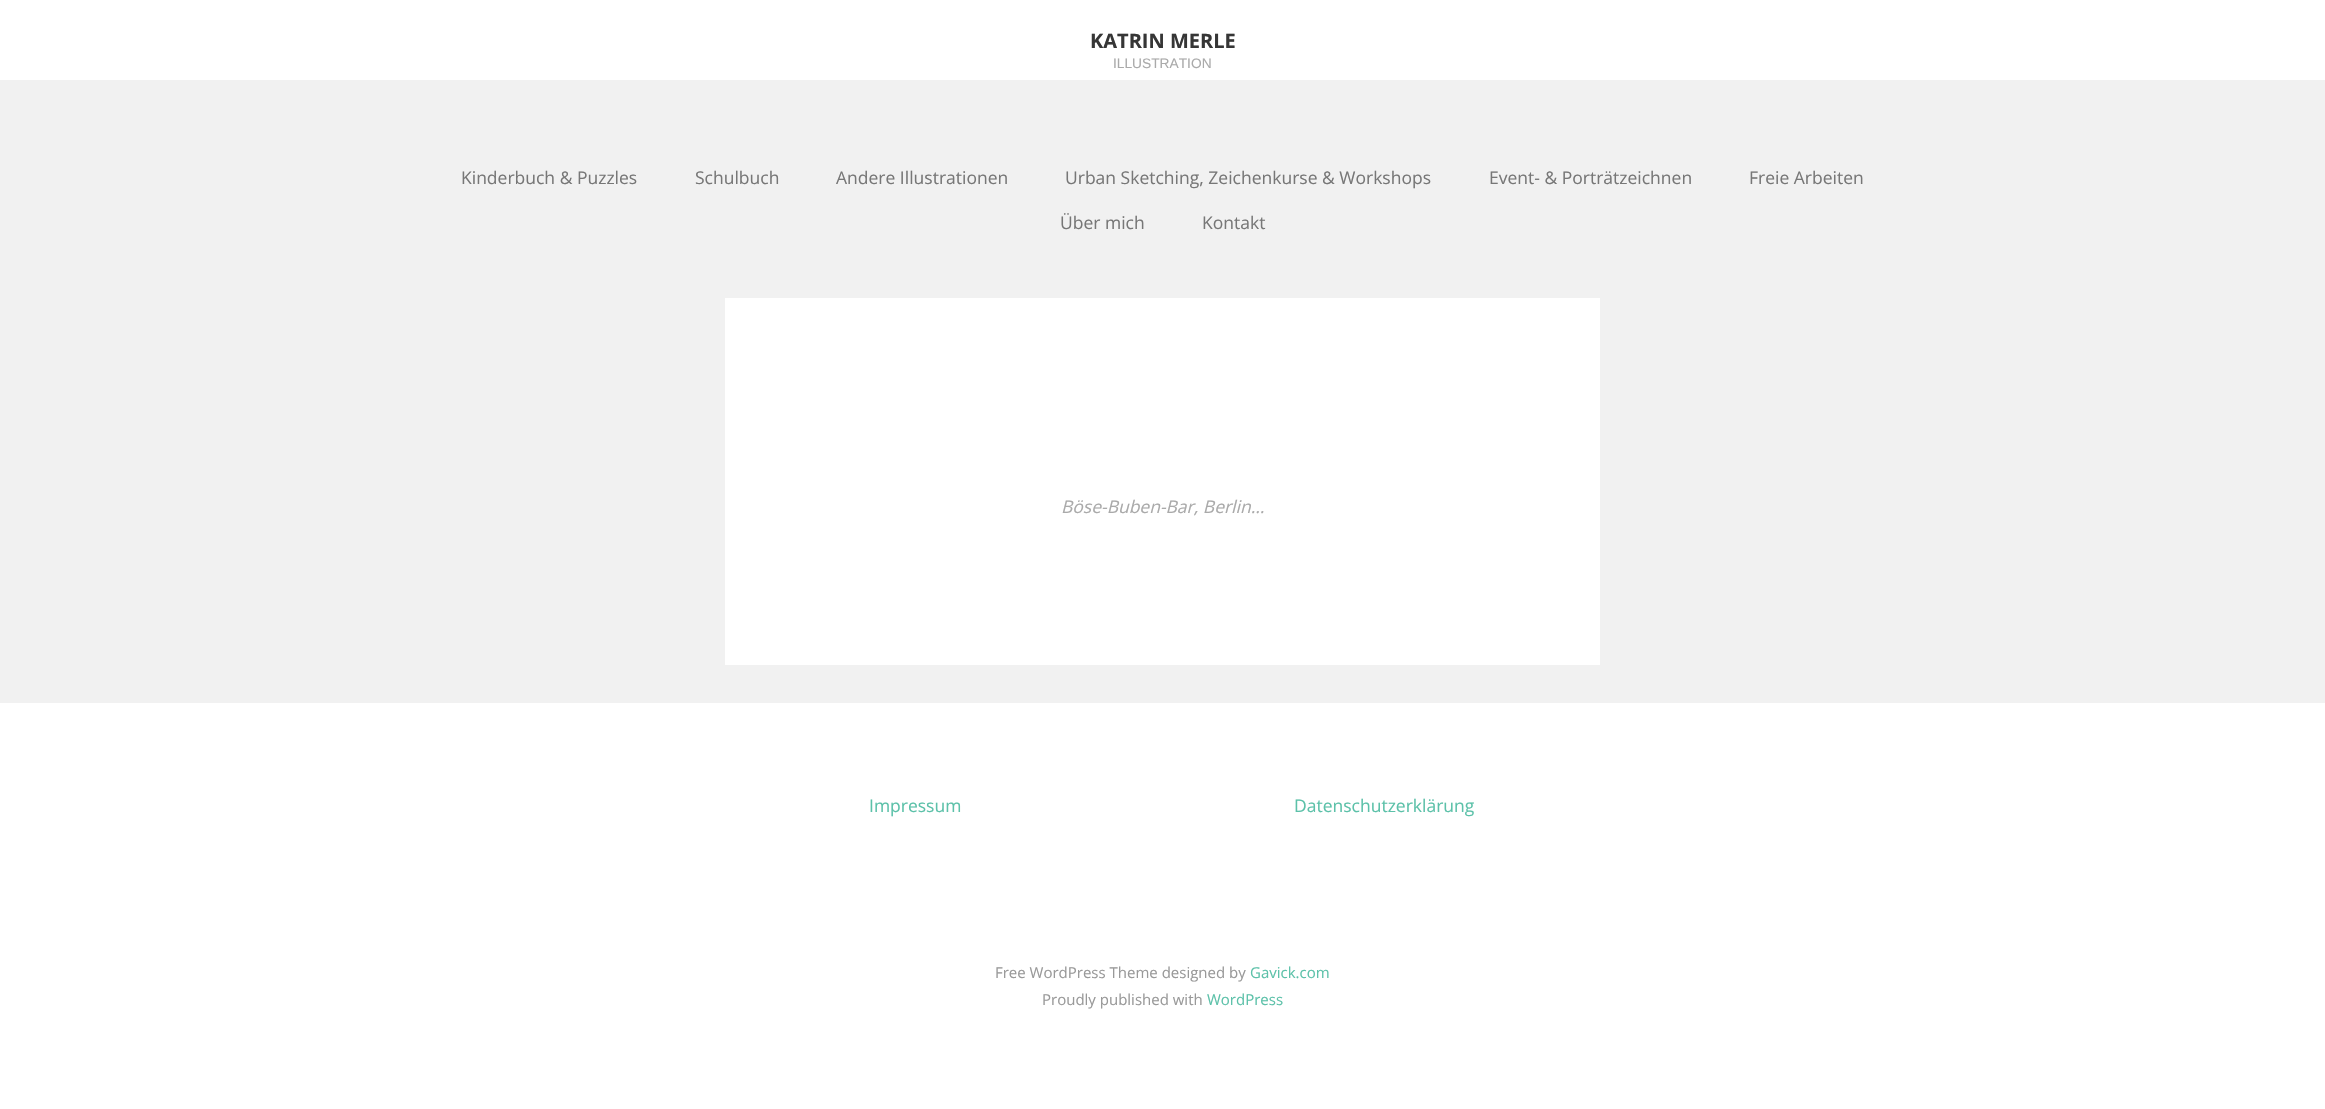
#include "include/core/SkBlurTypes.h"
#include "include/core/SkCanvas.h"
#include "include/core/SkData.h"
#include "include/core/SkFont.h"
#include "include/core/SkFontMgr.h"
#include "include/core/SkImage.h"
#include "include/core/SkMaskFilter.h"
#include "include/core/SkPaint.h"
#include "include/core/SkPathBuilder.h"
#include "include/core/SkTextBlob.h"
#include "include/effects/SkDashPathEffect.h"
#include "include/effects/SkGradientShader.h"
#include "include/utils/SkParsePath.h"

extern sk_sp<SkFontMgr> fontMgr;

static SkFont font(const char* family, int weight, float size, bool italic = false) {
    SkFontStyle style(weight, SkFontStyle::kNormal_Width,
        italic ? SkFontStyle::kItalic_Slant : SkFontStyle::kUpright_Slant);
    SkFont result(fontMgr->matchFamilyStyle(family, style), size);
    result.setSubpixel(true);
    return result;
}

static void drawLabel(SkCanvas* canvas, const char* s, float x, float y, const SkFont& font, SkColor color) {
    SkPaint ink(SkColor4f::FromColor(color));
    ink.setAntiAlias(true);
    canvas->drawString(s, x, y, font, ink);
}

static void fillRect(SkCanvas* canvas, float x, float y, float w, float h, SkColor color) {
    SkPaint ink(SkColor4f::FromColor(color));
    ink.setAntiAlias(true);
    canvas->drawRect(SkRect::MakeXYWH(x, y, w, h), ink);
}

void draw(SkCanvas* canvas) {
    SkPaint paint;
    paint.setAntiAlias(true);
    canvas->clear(0xFFFFFFFF);
    SkFont font1 = font("Open Sans", 700, 20);
    drawLabel(canvas, "KATRIN MERLE", 1090, 48, font1, 0xFF363636);
    SkFont font2 = font("Liberation Sans", 400, 13.75f);
    drawLabel(canvas, "ILLUSTRATION", 1113, 68, font2, 0xFFAAAAAA);
    fillRect(canvas, 0, 80, 2325, 623, 0xFFF1F1F1);
    SkFont font3 = font("Open Sans", 400, 17.5f);
    drawLabel(canvas, "Kinderbuch & Puzzles", 461, 184, font3, 0xFF777777);
    drawLabel(canvas, "Schulbuch", 695, 184, font3, 0xFF777777);
    drawLabel(canvas, "Andere Illustrationen", 836, 184, font3, 0xFF777777);
    drawLabel(canvas, "Urban Sketching, Zeichenkurse & Workshops", 1065, 184, font3, 0xFF777777);
    drawLabel(canvas, "Event- & Porträtzeichnen", 1489, 184, font3, 0xFF777777);
    drawLabel(canvas, "Freie Arbeiten", 1749, 184, font3, 0xFF777777);
    drawLabel(canvas, "Über mich", 1060, 229, font3, 0xFF777777);
    drawLabel(canvas, "Kontakt", 1202, 229, font3, 0xFF777777);
    fillRect(canvas, 725, 298, 875, 367, 0xFFFFFFFF);
    SkFont font4 = font("Open Sans", 400, 17.5f, true);
    drawLabel(canvas, "Böse-Buben-Bar, Berlin…", 1061, 513, font4, 0xFFAAAAAA);
    drawLabel(canvas, "Impressum", 869, 812, font3, 0xFF5CC1A9);
    drawLabel(canvas, "Datenschutzerklärung", 1294, 812, font3, 0xFF5CC1A9);
    SkFont font5 = font("Open Sans", 400, 15);
    drawLabel(canvas, "Free WordPress Theme designed by", 995, 978, font5, 0xFF999999);
    drawLabel(canvas, "Gavick.com", 1250, 978, font5, 0xFF5CC1A9);
    drawLabel(canvas, "Proudly published with", 1042, 1005, font5, 0xFF999999);
    drawLabel(canvas, "WordPress", 1207, 1005, font5, 0xFF5CC1A9);
}
